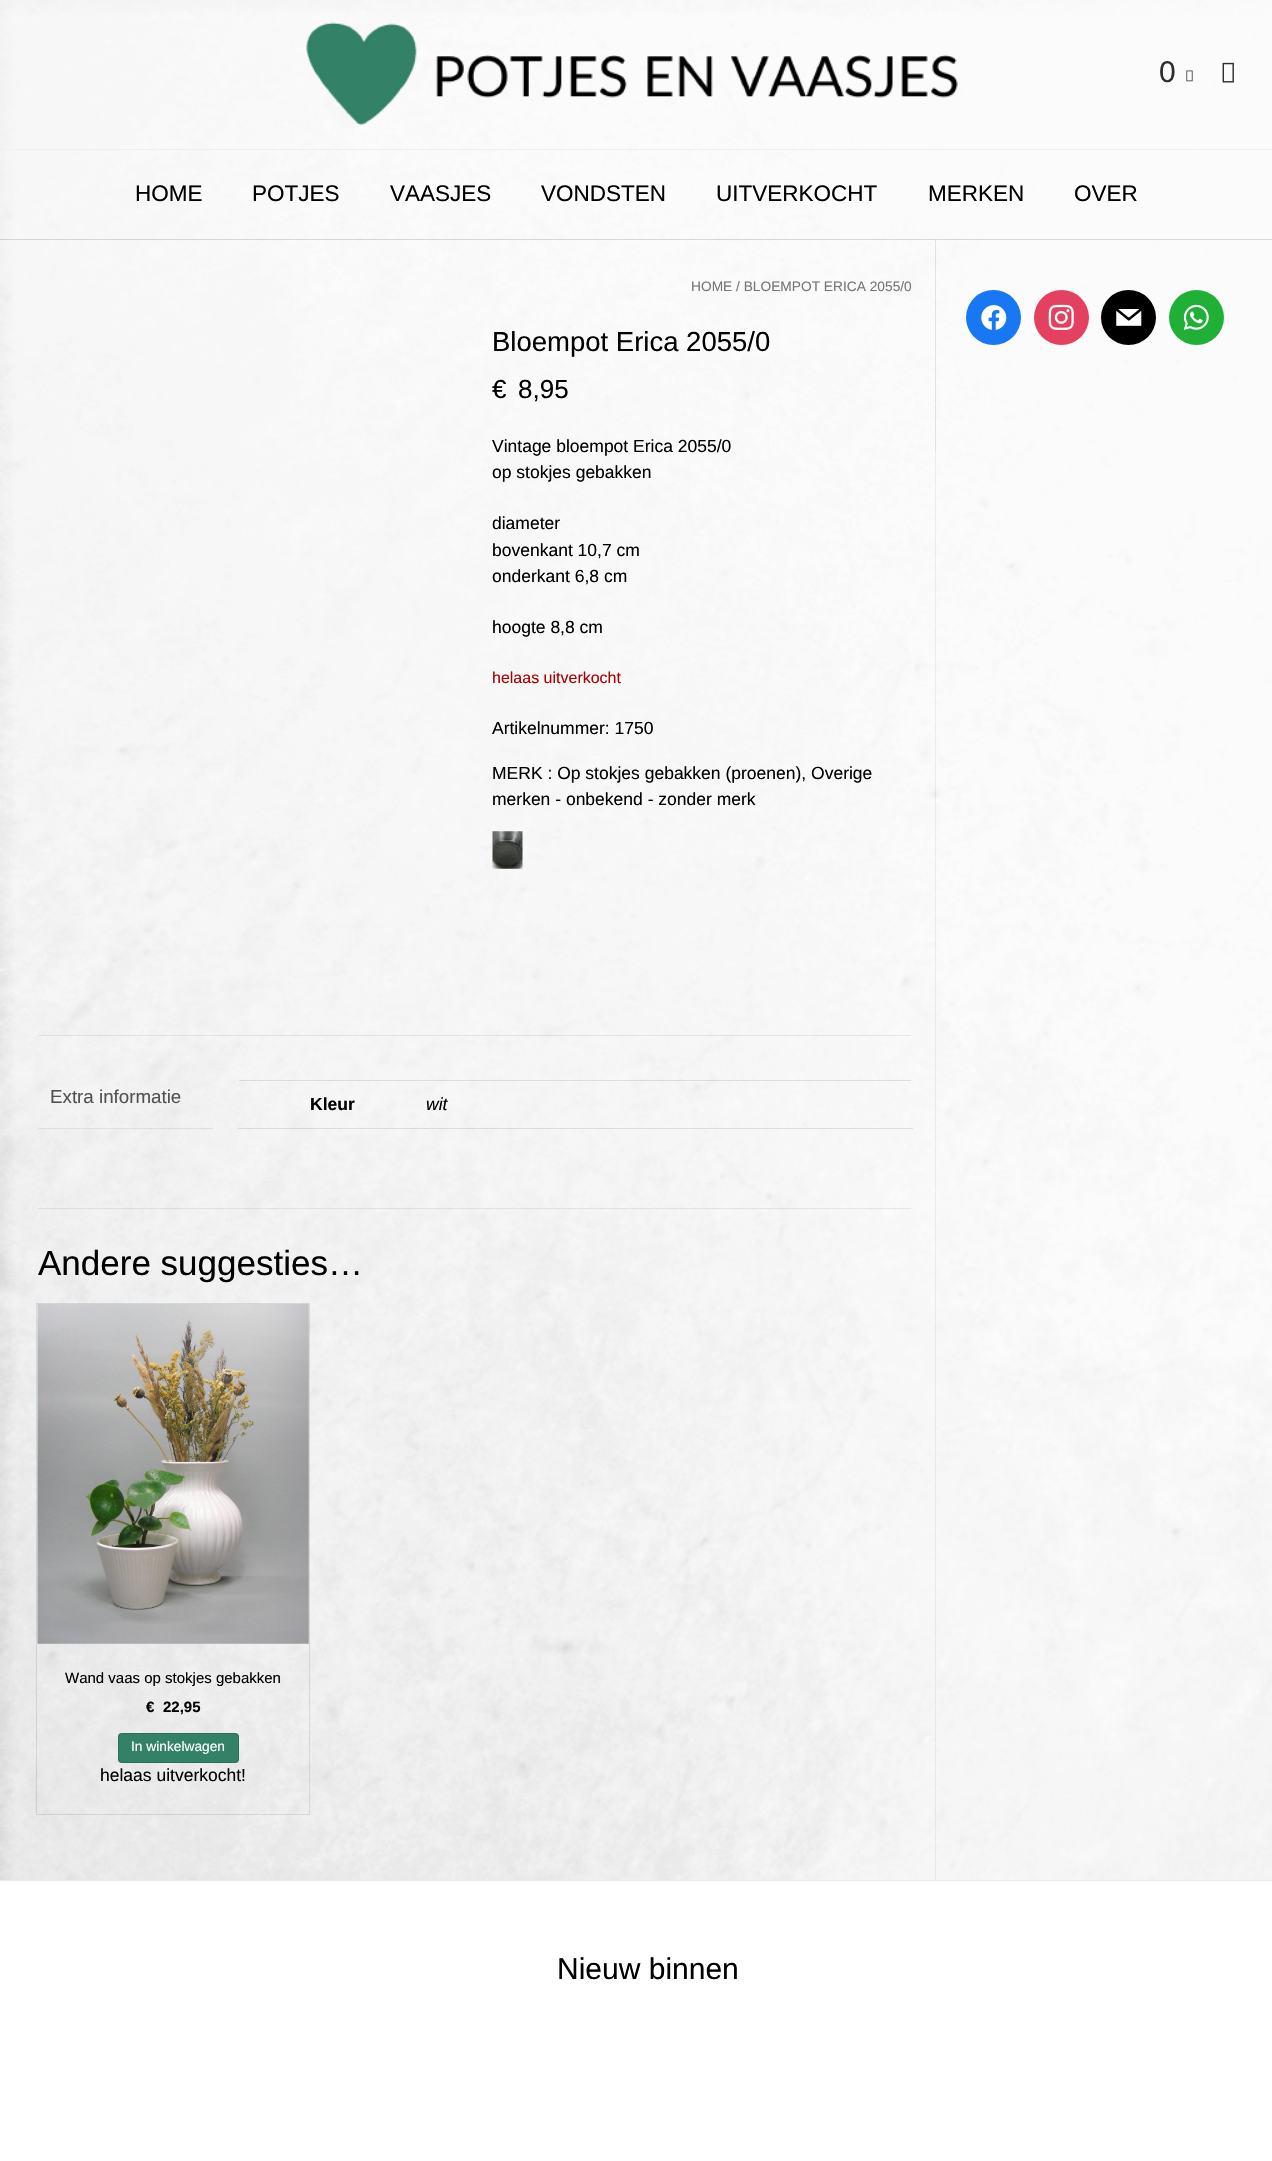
#include "include/core/SkBlurTypes.h"
#include "include/core/SkCanvas.h"
#include "include/core/SkData.h"
#include "include/core/SkFont.h"
#include "include/core/SkFontMgr.h"
#include "include/core/SkImage.h"
#include "include/core/SkMaskFilter.h"
#include "include/core/SkPaint.h"
#include "include/core/SkPathBuilder.h"
#include "include/core/SkTextBlob.h"
#include "include/effects/SkDashPathEffect.h"
#include "include/effects/SkGradientShader.h"
#include "include/utils/SkParsePath.h"

extern sk_sp<SkFontMgr> fontMgr;

static SkFont font(const char* family, int weight, float size, bool italic = false) {
    SkFontStyle style(weight, SkFontStyle::kNormal_Width,
        italic ? SkFontStyle::kItalic_Slant : SkFontStyle::kUpright_Slant);
    SkFont result(fontMgr->matchFamilyStyle(family, style), size);
    result.setSubpixel(true);
    return result;
}

static void drawLabel(SkCanvas* canvas, const char* s, float x, float y, const SkFont& font, SkColor color) {
    SkPaint ink(SkColor4f::FromColor(color));
    ink.setAntiAlias(true);
    canvas->drawString(s, x, y, font, ink);
}

static void fillRect(SkCanvas* canvas, float x, float y, float w, float h, SkColor color) {
    SkPaint ink(SkColor4f::FromColor(color));
    ink.setAntiAlias(true);
    canvas->drawRect(SkRect::MakeXYWH(x, y, w, h), ink);
}

static void fillRRect(SkCanvas* canvas, float x, float y, float w, float h, float radius, SkColor color) {
    SkPaint ink(SkColor4f::FromColor(color));
    ink.setAntiAlias(true);
    canvas->drawRoundRect(SkRect::MakeXYWH(x, y, w, h), radius, radius, ink);
}

static void drawPhoto(SkCanvas* canvas, const char* path, float x, float y, float w, float h) {
    auto image = SkImages::DeferredFromEncodedData(SkData::MakeFromFileName(path));
    canvas->drawImageRect(image, SkRect::MakeXYWH(x, y, w, h), SkSamplingOptions());
}

void draw(SkCanvas* canvas) {
    SkPaint paint;
    paint.setAntiAlias(true);
    canvas->clear(0xFFFFFFFF);
    drawPhoto(canvas, "assets/img1.png", 0, 0, 1272, 1880);
    fillRect(canvas, 0, 239, 1272, 1, 0x24000000);
    drawPhoto(canvas, "assets/img2.png", 306, 22, 652, 104);
    SkFont font1 = font("Liberation Sans", 400, 30);
    drawLabel(canvas, "0", 1159, 82, font1, 0xFF2D2D2D);
    drawPhoto(canvas, "assets/img3.png", 1186, 70, 7, 12);
    drawPhoto(canvas, "assets/img4.png", 1222, 62, 12, 21);
    fillRect(canvas, 0, 149, 1272, 1, 0xFFEFEFEF);
    SkFont font2 = font("Liberation Sans", 400, 22.5f);
    drawLabel(canvas, "HOME", 135, 201, font2, 0xFF000000);
    drawLabel(canvas, "POTJES", 252, 201, font2, 0xFF000000);
    drawLabel(canvas, "VAASJES", 390, 201, font2, 0xFF000000);
    drawLabel(canvas, "VONDSTEN", 541, 201, font2, 0xFF000000);
    drawLabel(canvas, "UITVERKOCHT", 716, 201, font2, 0xFF000000);
    drawLabel(canvas, "MERKEN", 928, 201, font2, 0xFF000000);
    drawLabel(canvas, "OVER", 1074, 201, font2, 0xFF000000);
    fillRect(canvas, 935, 240, 1, 211, 0x0A000000);
    fillRect(canvas, 935, 240, 1, 1640, 0x0F000000);
    SkFont font3 = font("Liberation Sans", 400, 13.75f);
    drawLabel(canvas, "HOME", 691, 291, font3, 0xFF767676);
    drawLabel(canvas, "/ BLOEMPOT ERICA 2055/0", 736, 291, font3, 0xFF767676);
    SkFont font4 = font("Liberation Sans", 400, 27.5f);
    drawLabel(canvas, "Bloempot Erica 2055/0", 492, 351, font4, 0xFF000000);
    SkFont font5 = font("Liberation Sans", 400, 26);
    drawLabel(canvas, "€", 492, 398, font5, 0xFF000000);
    drawLabel(canvas, "8,95", 518, 398, font5, 0xFF000000);
    SkFont font6 = font("Liberation Sans", 400, 17.5f);
    drawLabel(canvas, "Vintage bloempot Erica 2055/0", 492, 452, font6, 0xFF000000);
    drawLabel(canvas, "op stokjes gebakken", 492, 478, font6, 0xFF000000);
    drawLabel(canvas, "diameter", 492, 529, font6, 0xFF000000);
    drawLabel(canvas, "bovenkant 10,7 cm", 492, 556, font6, 0xFF000000);
    drawLabel(canvas, "onderkant 6,8 cm", 492, 582, font6, 0xFF000000);
    drawLabel(canvas, "hoogte 8,8 cm", 492, 633, font6, 0xFF000000);
    SkFont font7 = font("Liberation Sans", 400, 16);
    drawLabel(canvas, "helaas uitverkocht", 492, 683, font7, 0xFFAA0000);
    drawLabel(canvas, "Artikelnummer: 1750", 492, 734, font6, 0xFF000000);
    drawLabel(canvas, "MERK : Op stokjes gebakken (proenen), Overige", 492, 779, font6, 0xFF000000);
    drawLabel(canvas, "merken - onbekend - zonder merk", 492, 805, font6, 0xFF000000);
    drawPhoto(canvas, "assets/img5.png", 492, 831, 31, 38);
    fillRect(canvas, 38, 1035, 873, 1, 0x14000000);
    fillRect(canvas, 38, 1208, 873, 1, 0x14000000);
    fillRect(canvas, 38, 1128, 175, 1, 0x14000000);
    SkFont font8 = font("Liberation Sans", 400, 18.75f);
    drawLabel(canvas, "Extra informatie", 50, 1103, font8, 0xFF515151);
    fillRect(canvas, 239, 1080, 672, 1, 0x1A000000);
    fillRect(canvas, 425, 1128, 488, 1, 0x1A000000);
    fillRect(canvas, 238, 1128, 188, 1, 0x1A000000);
    SkFont font9 = font("Liberation Sans", 700, 17.5f);
    drawLabel(canvas, "Kleur", 310, 1110, font9, 0xFF000000);
    SkFont font10 = font("Liberation Sans", 400, 17.5f, true);
    drawLabel(canvas, "wit", 426, 1110, font10, 0xFF000000);
    SkFont font11 = font("Liberation Sans", 400, 35);
    drawLabel(canvas, "Andere suggesties…", 38, 1275, font11, 0xFF000000);
    paint.setStroke(true);
    paint.setStrokeWidth(1);
    paint.setColor(0x1A000000);
    canvas->drawRect(SkRect::MakeXYWH(36.5f, 1303.5f, 273, 511), paint);
    drawPhoto(canvas, "assets/img6.png", 37, 1303, 272, 341);
    SkFont font12 = font("Liberation Sans", 400, 15);
    drawLabel(canvas, "Wand vaas op stokjes gebakken", 65, 1683, font12, 0xFF000000);
    SkFont font13 = font("Liberation Sans", 700, 15);
    drawLabel(canvas, "€", 146, 1712, font13, 0xFF000000);
    drawLabel(canvas, "22,95", 163, 1712, font13, 0xFF000000);
    fillRRect(canvas, 118, 1733, 121, 30, 4, 0xFF338167);
    paint.setColor(0x24000000);
    canvas->drawRoundRect(SkRect::MakeXYWH(118.5f, 1733.5f, 120, 29), 3.5f, 3.5f, paint);
    drawLabel(canvas, "In winkelwagen", 131, 1751, font3, 0xFFFFFFFF);
    drawLabel(canvas, "helaas uitverkocht!", 100, 1781, font6, 0xFF000000);
    paint.setStroke(false);
    paint.setColor(0xFF1877F2);
    canvas->drawCircle(993.5f, 317.5f, 27.5f, paint);
    drawPhoto(canvas, "assets/img7.png", 981, 305, 26, 25);
    paint.setColor(0xFFE4405F);
    canvas->drawCircle(1061.5f, 317.5f, 27.5f, paint);
    drawPhoto(canvas, "assets/img8.png", 1048, 304, 26, 26);
    paint.setColor(0xFF000000);
    canvas->drawCircle(1128.5f, 317.5f, 27.5f, paint);
    drawPhoto(canvas, "assets/img9.png", 1116, 309, 26, 17);
    paint.setColor(0xFF20B038);
    canvas->drawCircle(1196.5f, 317.5f, 27.5f, paint);
    drawPhoto(canvas, "assets/img10.png", 1183, 304, 26, 26);
    fillRect(canvas, 0, 1880, 1272, 1, 0xFFE9E9E9);
    drawLabel(canvas, "Nieuw binnen", 557, 1979, font1, 0xFF000000);
}
